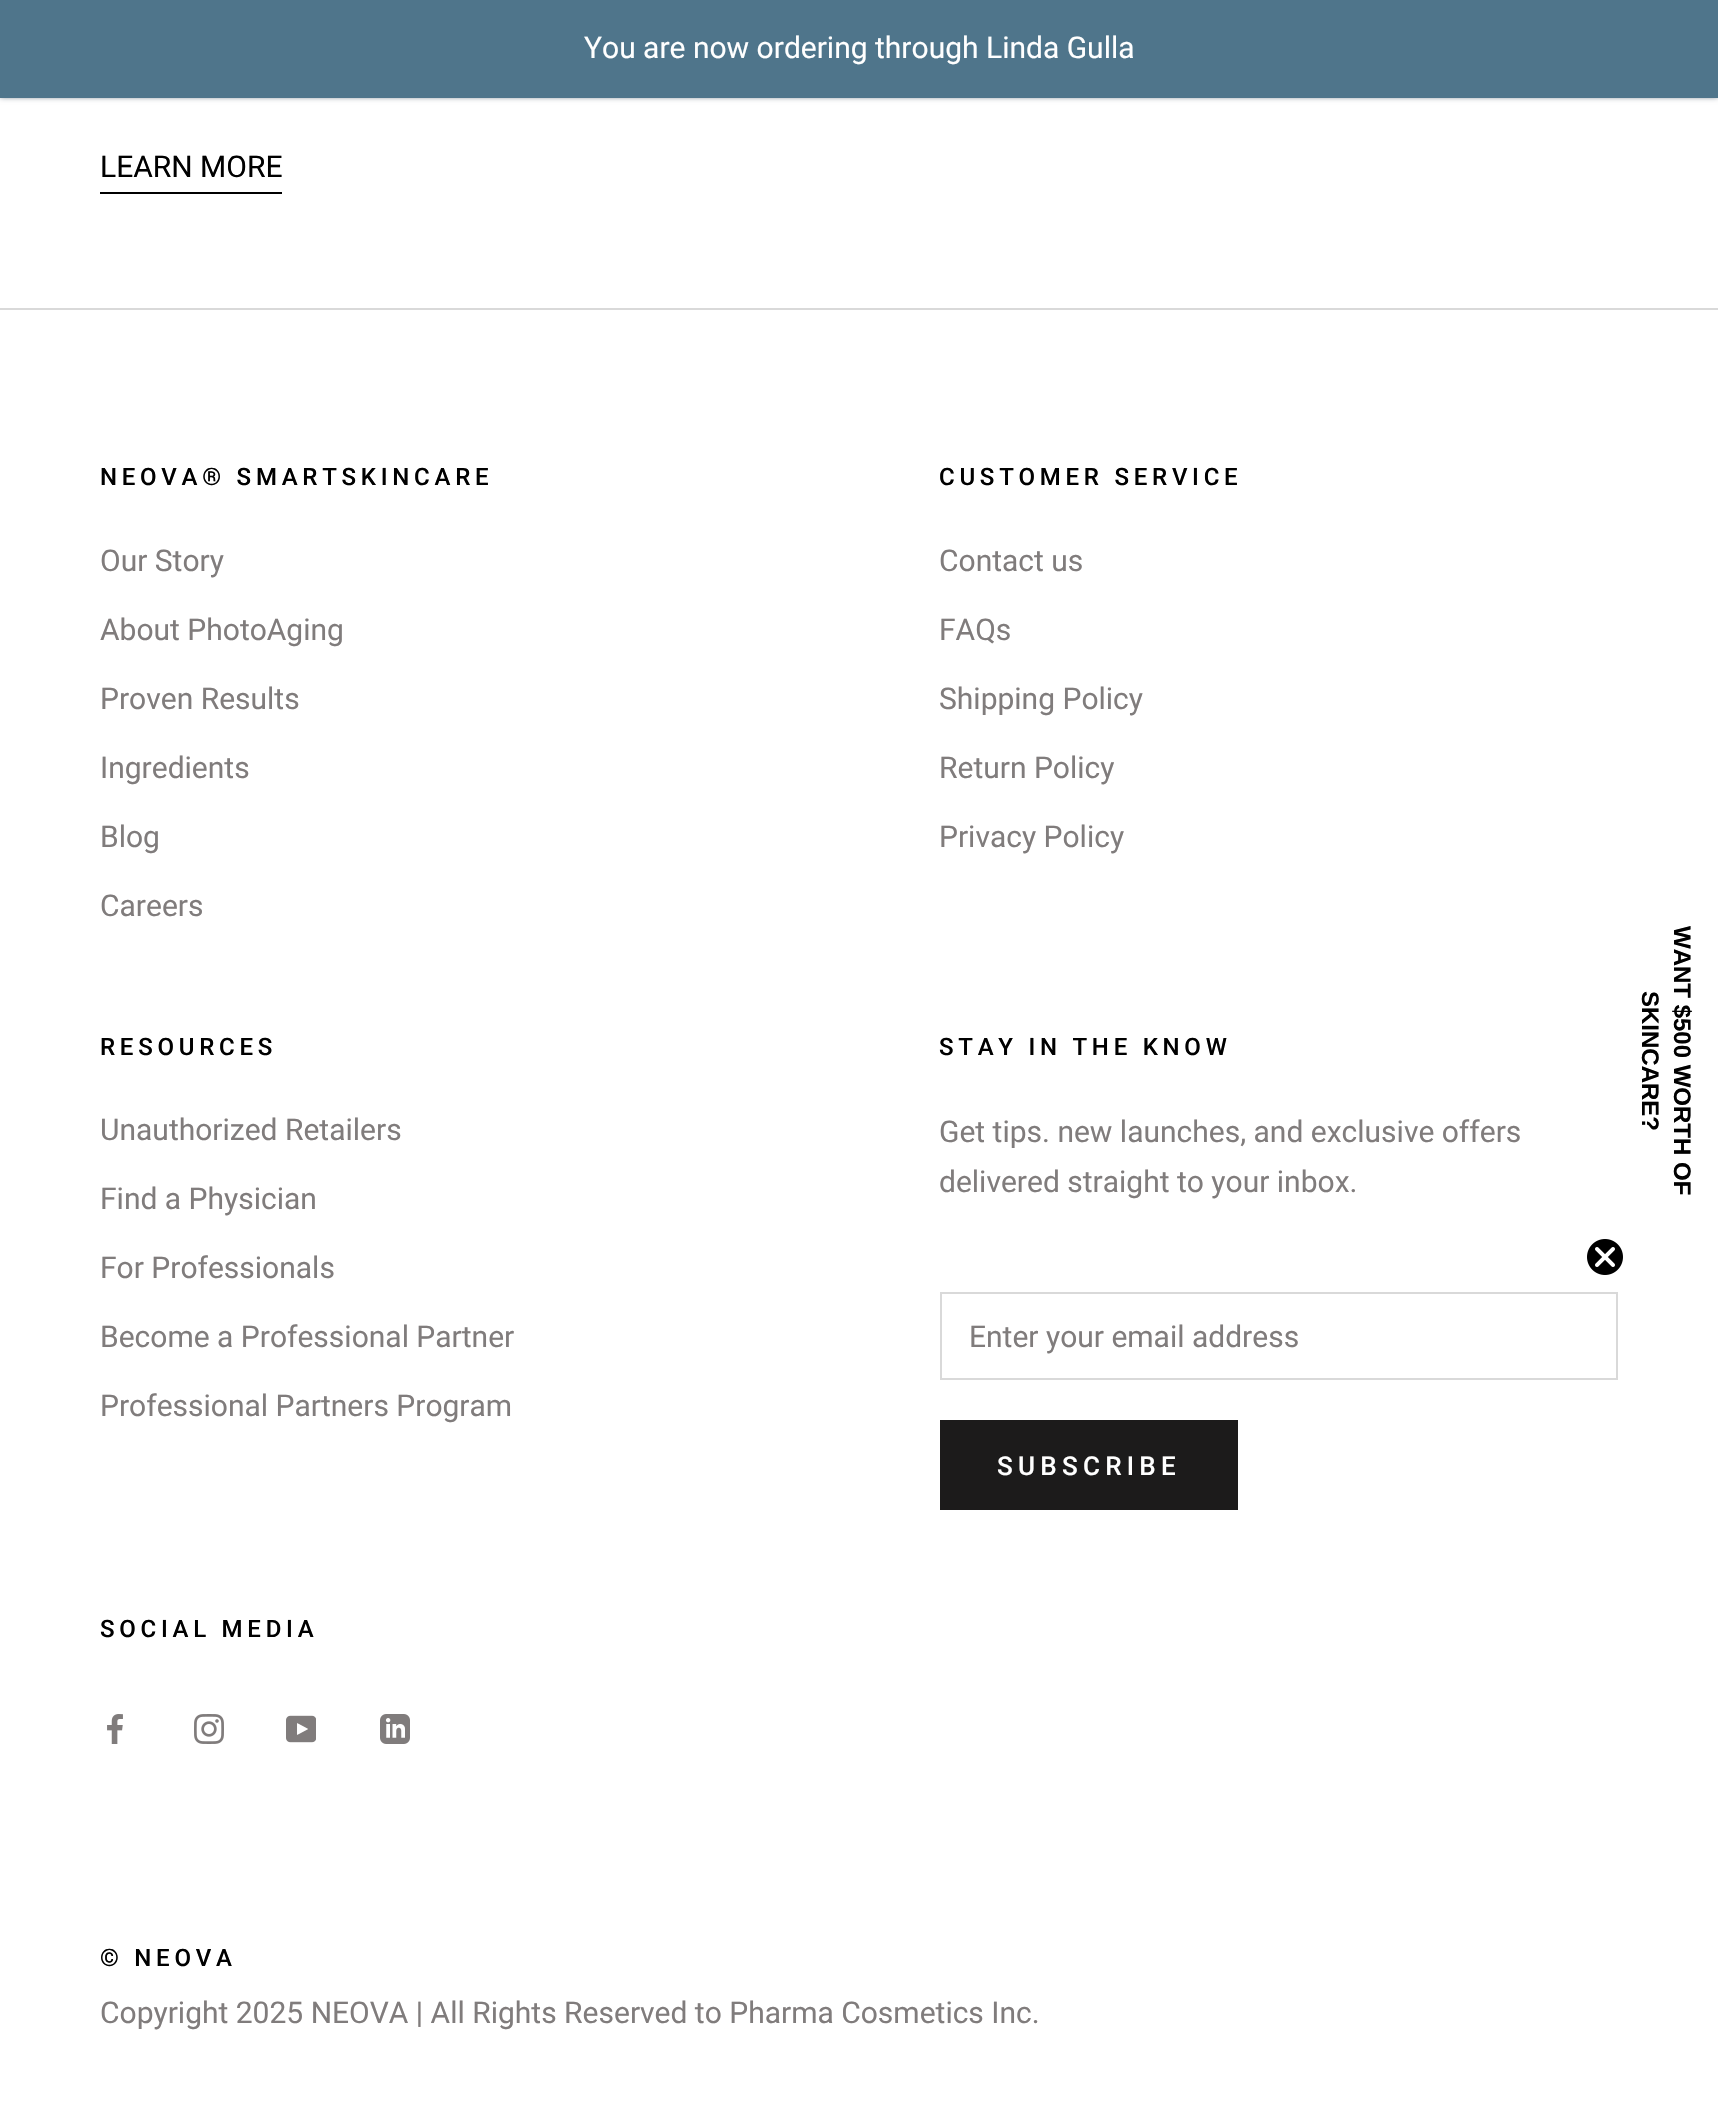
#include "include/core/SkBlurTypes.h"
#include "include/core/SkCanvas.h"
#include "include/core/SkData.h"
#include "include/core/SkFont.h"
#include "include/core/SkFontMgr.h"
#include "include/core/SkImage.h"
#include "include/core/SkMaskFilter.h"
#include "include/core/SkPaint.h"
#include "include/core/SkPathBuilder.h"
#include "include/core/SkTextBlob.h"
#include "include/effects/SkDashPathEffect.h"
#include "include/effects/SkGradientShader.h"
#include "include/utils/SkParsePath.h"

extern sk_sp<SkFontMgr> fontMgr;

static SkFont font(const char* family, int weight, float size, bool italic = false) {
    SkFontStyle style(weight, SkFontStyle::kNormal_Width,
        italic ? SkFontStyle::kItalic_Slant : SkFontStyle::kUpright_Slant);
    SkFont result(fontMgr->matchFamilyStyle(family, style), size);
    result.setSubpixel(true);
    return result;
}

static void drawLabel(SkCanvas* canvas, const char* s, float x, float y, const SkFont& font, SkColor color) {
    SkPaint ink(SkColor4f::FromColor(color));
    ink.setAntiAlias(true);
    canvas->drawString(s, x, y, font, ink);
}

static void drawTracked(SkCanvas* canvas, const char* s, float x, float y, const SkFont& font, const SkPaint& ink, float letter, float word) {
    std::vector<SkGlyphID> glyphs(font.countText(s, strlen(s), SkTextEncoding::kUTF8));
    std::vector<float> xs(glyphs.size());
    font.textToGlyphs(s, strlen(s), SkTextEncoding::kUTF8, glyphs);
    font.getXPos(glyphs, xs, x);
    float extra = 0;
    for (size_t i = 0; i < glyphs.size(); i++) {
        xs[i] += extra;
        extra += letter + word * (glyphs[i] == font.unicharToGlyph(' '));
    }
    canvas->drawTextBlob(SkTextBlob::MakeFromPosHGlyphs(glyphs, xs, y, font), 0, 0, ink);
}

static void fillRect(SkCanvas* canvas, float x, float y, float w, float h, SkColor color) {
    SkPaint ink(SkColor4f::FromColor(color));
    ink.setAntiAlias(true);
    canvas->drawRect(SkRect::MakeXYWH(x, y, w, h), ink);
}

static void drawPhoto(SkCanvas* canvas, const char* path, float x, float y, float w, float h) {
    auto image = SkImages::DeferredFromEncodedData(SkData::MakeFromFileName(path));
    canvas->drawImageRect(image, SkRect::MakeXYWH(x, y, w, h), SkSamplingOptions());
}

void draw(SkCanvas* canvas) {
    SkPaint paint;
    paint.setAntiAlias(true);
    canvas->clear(0xFFFFFFFF);
    paint.setColor(0xFF2C3E50);
    paint.setMaskFilter(SkMaskFilter::MakeBlur(kNormal_SkBlurStyle, 3));
    canvas->drawRect(SkRect::MakeXYWH(0, -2, 1718, 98), paint);
    paint.setMaskFilter(nullptr);
    fillRect(canvas, 0, 0, 1718, 98, 0xFF4F758B);
    SkFont font1 = font("Roboto", 400, 30);
    drawLabel(canvas, "You are now ordering through Linda Gulla", 584, 58, font1, 0xFFFFFFFF);
    drawLabel(canvas, "LEARN MORE", 100, 177, font1, 0xFF000000);
    fillRect(canvas, 100, 192, 182, 2, 0xFF000000);
    fillRect(canvas, 0, 308, 1718, 2, 0xFFD9D9D9);
    SkFont font2 = font("Roboto", 500, 24);
    paint.setColor(0xFF000000);
    drawTracked(canvas, "NEOVA® SMARTSKINCARE", 100, 485, font2, paint, 4.75f, 0);
    drawLabel(canvas, "Our Story", 100, 571, font1, 0xFF807C7C);
    drawLabel(canvas, "About PhotoAging", 100, 640, font1, 0xFF807C7C);
    drawLabel(canvas, "Proven Results", 100, 709, font1, 0xFF807C7C);
    drawLabel(canvas, "Ingredients", 100, 778, font1, 0xFF807C7C);
    drawLabel(canvas, "Blog", 100, 847, font1, 0xFF807C7C);
    drawLabel(canvas, "Careers", 100, 916, font1, 0xFF807C7C);
    drawTracked(canvas, "CUSTOMER SERVICE", 939, 485, font2, paint, 4.75f, 0);
    drawLabel(canvas, "Contact us", 939, 571, font1, 0xFF807C7C);
    drawLabel(canvas, "FAQs", 939, 640, font1, 0xFF807C7C);
    drawLabel(canvas, "Shipping Policy", 939, 709, font1, 0xFF807C7C);
    drawLabel(canvas, "Return Policy", 939, 778, font1, 0xFF807C7C);
    drawLabel(canvas, "Privacy Policy", 939, 847, font1, 0xFF807C7C);
    drawTracked(canvas, "RESOURCES", 100, 1055, font2, paint, 4.75f, 0);
    drawLabel(canvas, "Unauthorized Retailers", 100, 1140, font1, 0xFF807C7C);
    drawLabel(canvas, "Find a Physician", 100, 1209, font1, 0xFF807C7C);
    drawLabel(canvas, "For Professionals", 100, 1278, font1, 0xFF807C7C);
    drawLabel(canvas, "Become a Professional Partner", 100, 1347, font1, 0xFF807C7C);
    drawLabel(canvas, "Professional Partners Program", 100, 1416, font1, 0xFF807C7C);
    drawTracked(canvas, "STAY IN THE KNOW", 939, 1055, font2, paint, 4.75f, 0);
    drawLabel(canvas, "Get tips. new launches, and exclusive offers", 939, 1142, font1, 0xFF807C7C);
    drawLabel(canvas, "delivered straight to your inbox.", 939, 1192, font1, 0xFF807C7C);
    paint.setStroke(true);
    paint.setStrokeWidth(2);
    paint.setColor(0xFFD9D9D9);
    canvas->drawRect(SkRect::MakeXYWH(941, 1293, 676, 86), paint);
    drawLabel(canvas, "Enter your email address", 969, 1347, font1, 0xFF807C7C);
    paint.setColor(0xFF1C1B1B);
    canvas->drawRect(SkRect::MakeXYWH(941, 1421, 296, 88), paint);
    fillRect(canvas, 942, 1422, 294, 86, 0xFF1C1B1B);
    SkFont font3 = font("Roboto", 500, 26);
    paint.setStroke(false);
    paint.setColor(0xFFFFFFFF);
    drawTracked(canvas, "SUBSCRIBE", 997, 1475, font3, paint, 5.25f, 0);
    paint.setColor(0xFF000000);
    drawTracked(canvas, "SOCIAL MEDIA", 100, 1637, font2, paint, 4.75f, 0);
    drawPhoto(canvas, "assets/img1.png", 107, 1714, 16, 30);
    drawPhoto(canvas, "assets/img2.png", 194, 1714, 30, 30);
    drawPhoto(canvas, "assets/img3.png", 286, 1715, 30, 28);
    drawPhoto(canvas, "assets/img4.png", 380, 1714, 30, 30);
    drawTracked(canvas, "© NEOVA", 100, 1966, font2, paint, 4.75f, 0);
    drawLabel(canvas, "Copyright 2025 NEOVA | All Rights Reserved to Pharma Cosmetics Inc.", 100, 2023, font1, 0xFF807C7C);
    SkFont font4 = font("Liberation Sans", 700, 24);
    canvas->save();
    canvas->rotate(90, 1642, 991);
    drawLabel(canvas, "SKINCARE?", 1642, 991, font4, 0xFF000000);
    canvas->restore();
    canvas->save();
    canvas->rotate(90, 1674, 926);
    drawLabel(canvas, "WANT $500 WORTH OF", 1674, 926, font4, 0xFF000000);
    canvas->restore();
    drawPhoto(canvas, "assets/img5.png", 1587, 1239, 36, 36);
}
